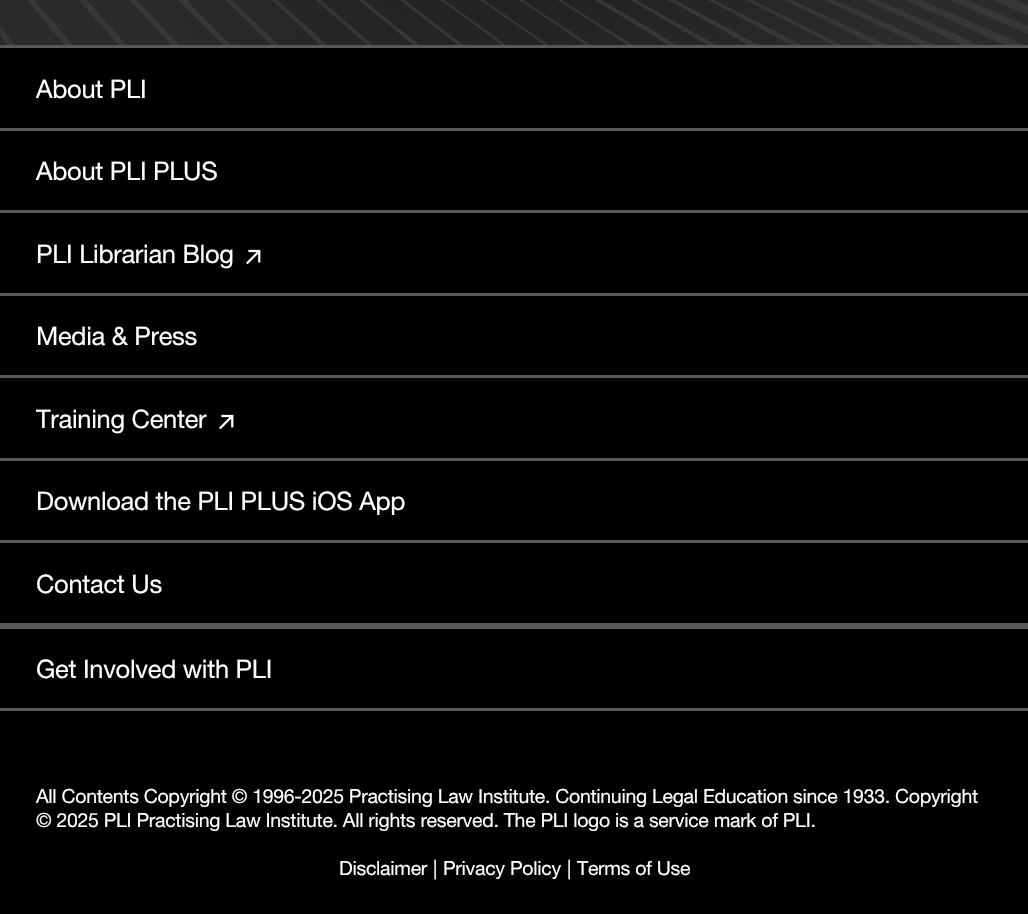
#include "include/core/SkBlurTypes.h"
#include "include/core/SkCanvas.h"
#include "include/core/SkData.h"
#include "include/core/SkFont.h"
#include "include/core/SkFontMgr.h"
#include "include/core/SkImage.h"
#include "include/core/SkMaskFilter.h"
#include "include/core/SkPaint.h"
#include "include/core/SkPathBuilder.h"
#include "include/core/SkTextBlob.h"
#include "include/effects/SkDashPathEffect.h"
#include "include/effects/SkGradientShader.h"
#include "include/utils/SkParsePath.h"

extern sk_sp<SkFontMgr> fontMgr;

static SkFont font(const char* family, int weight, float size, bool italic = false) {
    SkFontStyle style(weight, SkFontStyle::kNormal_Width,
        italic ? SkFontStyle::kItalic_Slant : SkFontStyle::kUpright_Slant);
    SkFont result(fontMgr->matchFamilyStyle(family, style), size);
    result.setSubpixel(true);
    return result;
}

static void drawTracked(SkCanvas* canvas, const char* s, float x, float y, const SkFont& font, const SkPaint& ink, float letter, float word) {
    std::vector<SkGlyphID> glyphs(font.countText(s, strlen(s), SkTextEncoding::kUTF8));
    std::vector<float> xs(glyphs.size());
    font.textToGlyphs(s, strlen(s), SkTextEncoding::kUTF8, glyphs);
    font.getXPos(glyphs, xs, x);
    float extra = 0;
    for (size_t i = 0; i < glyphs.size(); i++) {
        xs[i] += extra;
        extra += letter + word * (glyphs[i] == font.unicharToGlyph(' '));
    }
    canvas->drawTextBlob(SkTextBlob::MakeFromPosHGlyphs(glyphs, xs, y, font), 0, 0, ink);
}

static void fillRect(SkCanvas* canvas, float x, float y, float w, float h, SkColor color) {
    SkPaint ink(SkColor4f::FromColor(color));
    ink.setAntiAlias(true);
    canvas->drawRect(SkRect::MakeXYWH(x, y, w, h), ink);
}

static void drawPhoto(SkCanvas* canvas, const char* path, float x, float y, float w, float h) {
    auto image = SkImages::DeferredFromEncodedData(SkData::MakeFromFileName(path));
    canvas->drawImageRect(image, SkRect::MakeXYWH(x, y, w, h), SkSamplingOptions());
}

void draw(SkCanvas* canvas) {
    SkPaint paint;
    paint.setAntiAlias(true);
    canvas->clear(0xFFFFFFFF);
    drawPhoto(canvas, "assets/img1.png", 0, 0, 1, 45);
    drawPhoto(canvas, "assets/img2.png", 0, 0, 1028, 45);
    fillRect(canvas, 0, 48, 1028, 80, 0xFF000000);
    fillRect(canvas, 0, 45, 1028, 3, 0xFF595757);
    SkFont font1 = font("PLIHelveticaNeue", 400, 25.5f);
    paint.setColor(0xFFFFFFFF);
    drawTracked(canvas, "About PLI", 36, 98, font1, paint, -0.3f, 0);
    fillRect(canvas, 0, 131, 1028, 79, 0xFF000000);
    fillRect(canvas, 0, 128, 1028, 3, 0xFF595757);
    drawTracked(canvas, "About PLI PLUS", 36, 180, font1, paint, -0.3f, 0);
    fillRect(canvas, 0, 213, 1028, 80, 0xFF000000);
    fillRect(canvas, 0, 210, 1028, 3, 0xFF595757);
    drawTracked(canvas, "PLI Librarian Blog", 36, 263, font1, paint, -0.3f, 0);
    drawPhoto(canvas, "assets/img3.png", 246, 249, 15, 16);
    fillRect(canvas, 0, 296, 1028, 79, 0xFF000000);
    fillRect(canvas, 0, 293, 1028, 3, 0xFF595757);
    drawTracked(canvas, "Media & Press", 36, 345, font1, paint, -0.3f, 0);
    fillRect(canvas, 0, 378, 1028, 80, 0xFF000000);
    fillRect(canvas, 0, 375, 1028, 3, 0xFF595757);
    drawTracked(canvas, "Training Center", 36, 428, font1, paint, -0.3f, 0);
    drawPhoto(canvas, "assets/img3.png", 219, 414, 15, 16);
    fillRect(canvas, 0, 461, 1028, 79, 0xFF000000);
    fillRect(canvas, 0, 458, 1028, 3, 0xFF595757);
    drawTracked(canvas, "Download the PLI PLUS iOS App", 36, 510, font1, paint, -0.3f, 0);
    fillRect(canvas, 0, 543, 1028, 80, 0xFF000000);
    fillRect(canvas, 0, 540, 1028, 3, 0xFF595757);
    fillRect(canvas, 0, 623, 1028, 6, 0xFF595757);
    drawTracked(canvas, "Contact Us", 36, 593, font1, paint, -0.3f, 0);
    fillRect(canvas, 0, 629, 1028, 79, 0xFF000000);
    fillRect(canvas, 0, 708, 1028, 3, 0xFF595757);
    drawTracked(canvas, "Get Involved with PLI", 36, 678, font1, paint, -0.3f, 0);
    fillRect(canvas, 0, 711, 1028, 203, 0xFF000000);
    SkFont font2 = font("PLIHelveticaNeue", 400, 19.5f);
    drawTracked(canvas, "All Contents Copyright © 1996-2025 Practising Law Institute. Continuing Legal Education since 1933. Copyright", 36, 803, font2, paint, -0.3f, 0);
    drawTracked(canvas, "© 2025 PLI Practising Law Institute. All rights reserved. The PLI logo is a service mark of PLI.", 36, 827, font2, paint, -0.3f, 0);
    drawTracked(canvas, "Disclaimer", 339, 875, font2, paint, -0.3f, 0);
    drawTracked(canvas, "|", 433, 875, font2, paint, -0.3f, 0);
    drawTracked(canvas, "Privacy Policy", 443, 875, font2, paint, -0.3f, 0);
    drawTracked(canvas, "|", 567, 875, font2, paint, -0.3f, 0);
    drawTracked(canvas, "Terms of Use", 577, 875, font2, paint, -0.3f, 0);
}
